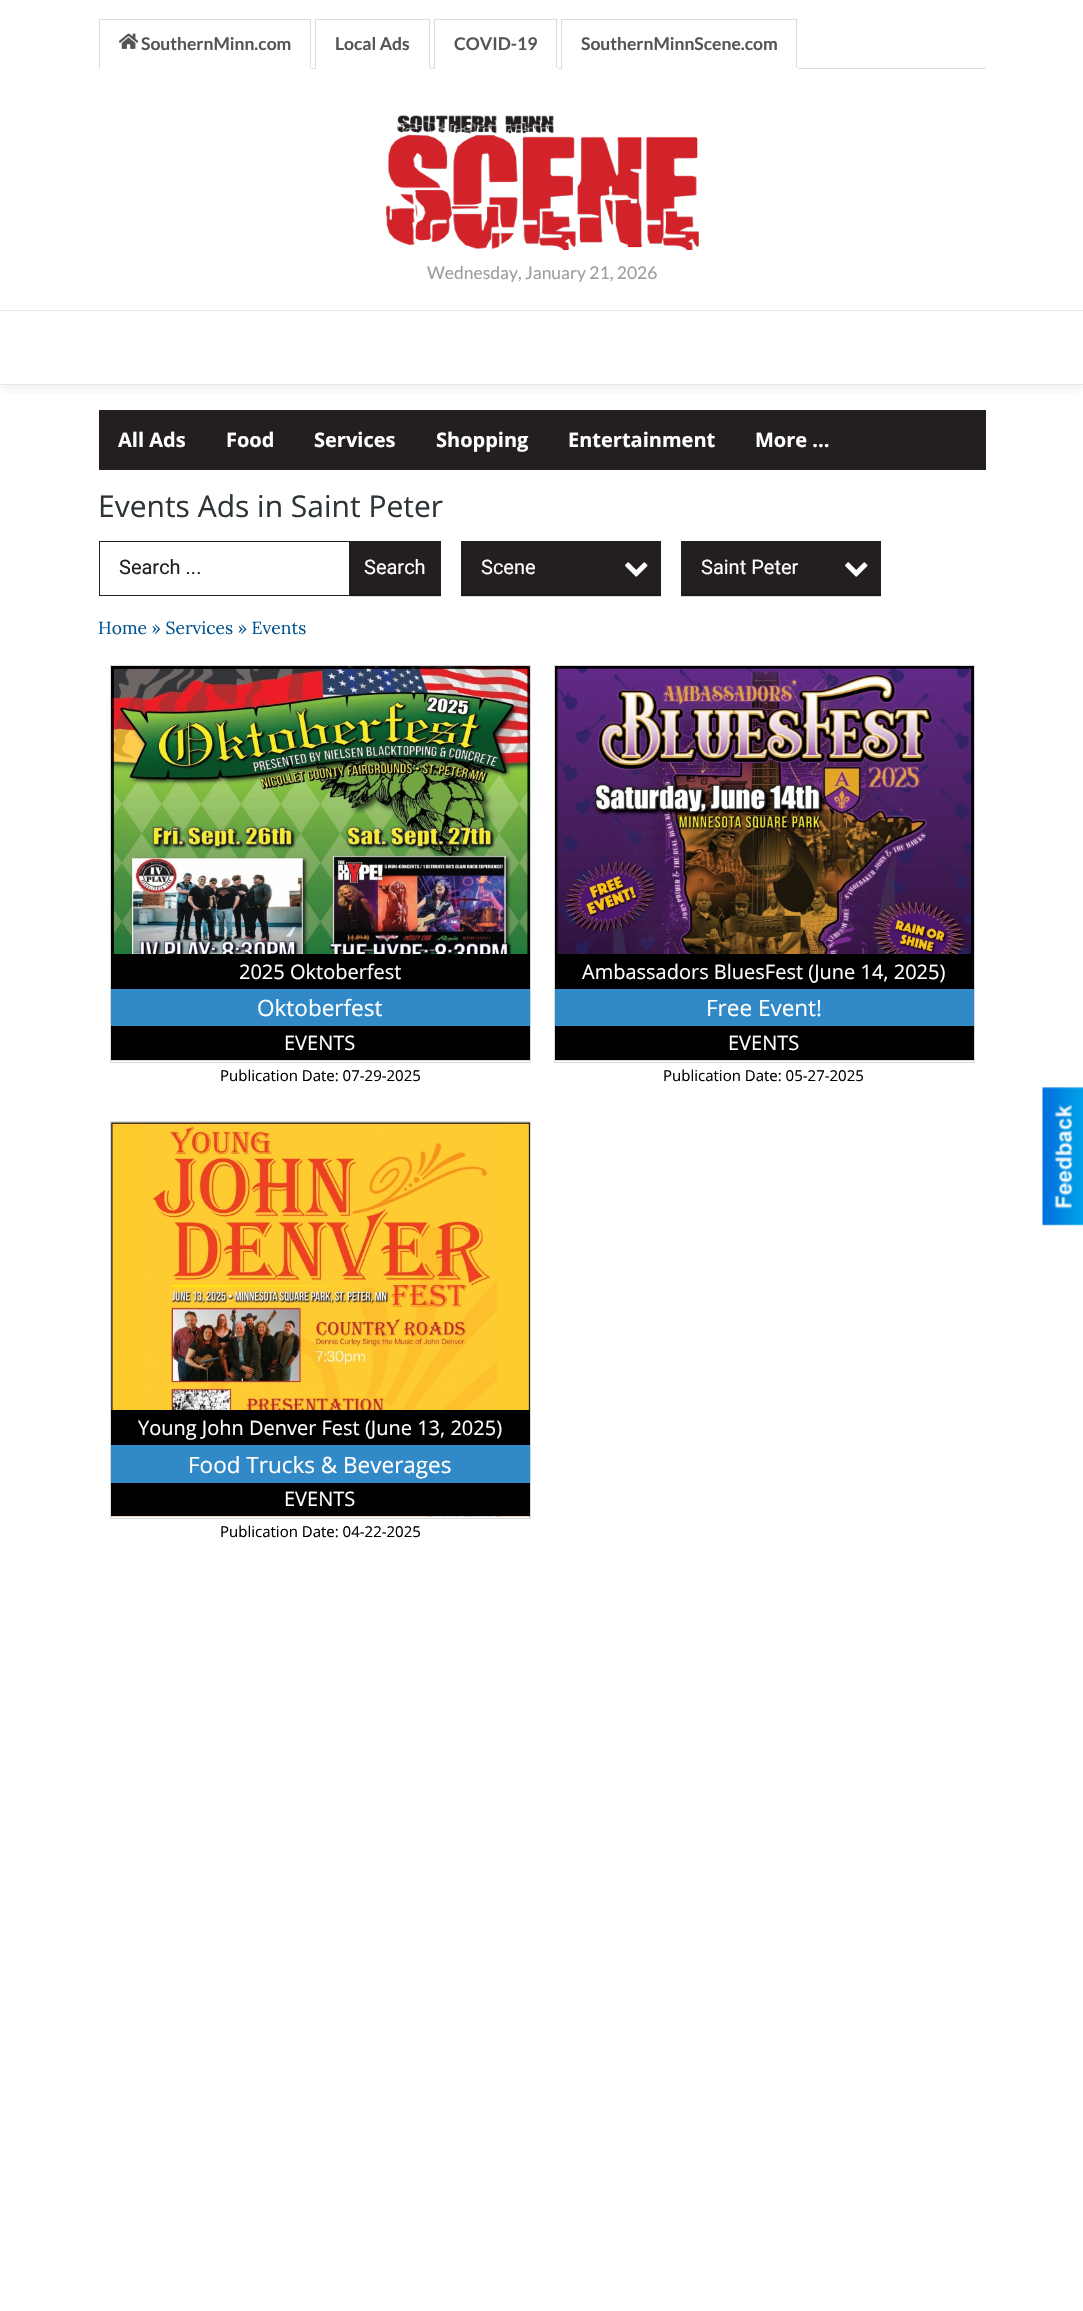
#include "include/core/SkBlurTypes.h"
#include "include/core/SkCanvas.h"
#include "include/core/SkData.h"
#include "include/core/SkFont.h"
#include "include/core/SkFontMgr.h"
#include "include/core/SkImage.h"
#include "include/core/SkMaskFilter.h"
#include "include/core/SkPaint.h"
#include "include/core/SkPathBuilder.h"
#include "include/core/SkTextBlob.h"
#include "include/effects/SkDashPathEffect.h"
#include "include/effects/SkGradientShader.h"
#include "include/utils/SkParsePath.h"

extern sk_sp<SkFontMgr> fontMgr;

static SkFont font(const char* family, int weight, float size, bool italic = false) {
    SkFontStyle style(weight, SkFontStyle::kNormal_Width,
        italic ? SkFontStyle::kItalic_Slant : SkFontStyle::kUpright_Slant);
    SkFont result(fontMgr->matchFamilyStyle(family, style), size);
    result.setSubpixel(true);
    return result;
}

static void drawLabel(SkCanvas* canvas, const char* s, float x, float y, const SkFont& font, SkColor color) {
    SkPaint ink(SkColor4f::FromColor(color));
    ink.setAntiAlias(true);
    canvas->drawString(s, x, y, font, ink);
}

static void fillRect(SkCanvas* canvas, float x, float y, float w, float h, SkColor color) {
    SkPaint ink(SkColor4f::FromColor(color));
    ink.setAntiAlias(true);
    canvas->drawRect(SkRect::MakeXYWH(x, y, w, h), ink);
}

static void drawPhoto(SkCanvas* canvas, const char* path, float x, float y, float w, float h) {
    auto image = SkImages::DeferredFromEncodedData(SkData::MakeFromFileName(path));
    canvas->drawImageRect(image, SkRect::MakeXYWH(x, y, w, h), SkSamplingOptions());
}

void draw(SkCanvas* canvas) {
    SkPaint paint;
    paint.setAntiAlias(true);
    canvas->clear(0xFFFFFFFF);
    fillRect(canvas, 350, 596, 91, 1, 0xFFD9D9D9);
    fillRect(canvas, 681, 596, 200, 1, 0xFFD9D9D9);
    fillRect(canvas, 461, 596, 200, 1, 0xFFD9D9D9);
    canvas->save();
    canvas->clipRect(SkRect::MakeXYWH(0, 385, 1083, 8));
    paint.setColor(0x0D000000);
    paint.setMaskFilter(SkMaskFilter::MakeBlur(kNormal_SkBlurStyle, 6));
    canvas->drawRect(SkRect::MakeXYWH(0, 6, 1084, 385), paint);
    paint.setMaskFilter(nullptr);
    canvas->restore();
    fillRect(canvas, 0, 384, 1083, 1, 0xFFE6E6E6);
    fillRect(canvas, 311, 68, 675, 1, 0xFFDDDDDD);
    fillRect(canvas, 99, 19, 212, 1, 0xFFDDDDDD);
    fillRect(canvas, 310, 19, 1, 50, 0xFFDDDDDD);
    fillRect(canvas, 310, 68, 1, 1, 0xFFFFFFFF);
    fillRect(canvas, 99, 19, 1, 50, 0xFFDDDDDD);
    drawPhoto(canvas, "assets/img1.png", 119, 33, 19, 16);
    SkFont font1 = font("Lato", 700, 17.5f);
    drawLabel(canvas, "SouthernMinn.com", 141, 50, font1, 0xFF555555);
    fillRect(canvas, 315, 19, 115, 1, 0xFFDDDDDD);
    fillRect(canvas, 429, 19, 1, 50, 0xFFDDDDDD);
    fillRect(canvas, 315, 68, 115, 1, 0xFFFFFFFF);
    fillRect(canvas, 315, 19, 1, 50, 0xFFDDDDDD);
    drawLabel(canvas, "Local Ads", 335, 50, font1, 0xFF555555);
    fillRect(canvas, 434, 19, 124, 1, 0xFFDDDDDD);
    fillRect(canvas, 556, 19, 1, 50, 0xFFDDDDDD);
    fillRect(canvas, 434, 68, 124, 1, 0xFFFFFFFF);
    fillRect(canvas, 434, 19, 1, 50, 0xFFDDDDDD);
    drawLabel(canvas, "COVID-19", 454, 50, font1, 0xFF555555);
    fillRect(canvas, 561, 19, 237, 1, 0xFFDDDDDD);
    fillRect(canvas, 796, 19, 1, 50, 0xFFDDDDDD);
    fillRect(canvas, 561, 68, 237, 1, 0xFFFFFFFF);
    fillRect(canvas, 561, 19, 1, 50, 0xFFDDDDDD);
    drawLabel(canvas, "SouthernMinnScene.com", 581, 50, font1, 0xFF555555);
    drawPhoto(canvas, "assets/img2.png", 386, 115, 313, 135);
    SkFont font2 = font("Lato", 400, 17.5f);
    drawLabel(canvas, "Wednesday, January 21, 2026", 427, 279, font2, 0xFF9E9C9C);
    fillRect(canvas, 0, 310, 1083, 1, 0xFFE6E6E6);
    fillRect(canvas, 99, 410, 887, 60, 0xFF231F20);
    SkFont font3 = font("Open Sans", 700, 20);
    drawLabel(canvas, "All Ads", 118, 447, font3, 0xFFFFFFFF);
    drawLabel(canvas, "Food", 226, 447, font3, 0xFFFFFFFF);
    drawLabel(canvas, "Services", 314, 447, font3, 0xFFFFFFFF);
    drawLabel(canvas, "Shopping", 436, 447, font3, 0xFFFFFFFF);
    drawLabel(canvas, "Entertainment", 568, 447, font3, 0xFFFFFFFF);
    drawLabel(canvas, "More ...", 755, 447, font3, 0xFFFFFFFF);
    SkFont font4 = font("Open Sans", 400, 30);
    drawLabel(canvas, "Events Ads in Saint Peter", 98, 517, font4, 0xFF2C3437);
    paint.setStroke(true);
    paint.setStrokeWidth(1);
    paint.setColor(0xFF231F20);
    canvas->drawRect(SkRect::MakeXYWH(99.5f, 541.5f, 250, 54), paint);
    SkFont font5 = font("Roboto", 400, 20);
    drawLabel(canvas, "Search ...", 119, 574, font5, 0xFF231F20);
    fillRect(canvas, 350, 541, 91, 53, 0xFF231F20);
    fillRect(canvas, 350, 594, 91, 2, 0xFF1E1A1B);
    drawLabel(canvas, "Search", 364, 574, font5, 0xFFFFFFFF);
    fillRect(canvas, 461, 541, 200, 53, 0xFF231F20);
    fillRect(canvas, 461, 594, 200, 2, 0xFF1E1A1B);
    drawLabel(canvas, "Scene", 481, 574, font5, 0xFFFFFFFF);
    drawPhoto(canvas, "assets/img3.png", 625, 562, 23, 15);
    fillRect(canvas, 681, 541, 200, 53, 0xFF231F20);
    fillRect(canvas, 681, 594, 200, 2, 0xFF1E1A1B);
    drawLabel(canvas, "Saint Peter", 701, 574, font5, 0xFFFFFFFF);
    drawPhoto(canvas, "assets/img3.png", 845, 562, 23, 15);
    SkFont font6 = font("Lora", 400, 17.5f);
    drawLabel(canvas, "Home » Services » Events", 98, 634, font6, 0xFF03548F);
    paint.setColor(0xFFD9D9D9);
    canvas->drawRect(SkRect::MakeXYWH(110.5f, 665.5f, 420, 397), paint);
    fillRect(canvas, 111, 1060, 419, 1, 0xFFD9D9D9);
    fillRect(canvas, 111, 666, 419, 394, 0xFF000000);
    drawPhoto(canvas, "assets/img4.png", 111, 666, 419, 288);
    SkFont font7 = font("Open Sans", 400, 20);
    drawLabel(canvas, "2025 Oktoberfest", 239, 979, font7, 0xFFFFFFFF);
    fillRect(canvas, 111, 989, 419, 37, 0xFF3289C7);
    SkFont font8 = font("Open Sans", 400, 22.5f);
    drawLabel(canvas, "Oktoberfest", 257, 1016, font8, 0xFFFFFFFF);
    drawLabel(canvas, "EVENTS", 284, 1050, font7, 0xFFFFFFFF);
    SkFont font9 = font("Open Sans", 400, 15);
    drawLabel(canvas, "Publication Date: 07-29-2025", 220, 1081, font9, 0xFF000000);
    canvas->drawRect(SkRect::MakeXYWH(554.5f, 665.5f, 420, 397), paint);
    fillRect(canvas, 555, 1060, 419, 1, 0xFFD9D9D9);
    fillRect(canvas, 555, 666, 419, 394, 0xFF000000);
    drawPhoto(canvas, "assets/img5.png", 556, 666, 418, 288);
    drawLabel(canvas, "Ambassadors BluesFest (June 14, 2025)", 582, 979, font7, 0xFFFFFFFF);
    fillRect(canvas, 555, 989, 419, 37, 0xFF3289C7);
    drawLabel(canvas, "Free Event!", 706, 1016, font8, 0xFFFFFFFF);
    drawLabel(canvas, "EVENTS", 728, 1050, font7, 0xFFFFFFFF);
    drawLabel(canvas, "Publication Date: 05-27-2025", 663, 1081, font9, 0xFF000000);
    canvas->drawRect(SkRect::MakeXYWH(110.5f, 1121.5f, 420, 397), paint);
    fillRect(canvas, 111, 1516, 419, 1, 0xFFD9D9D9);
    drawPhoto(canvas, "assets/img6.png", 111, 1122, 419, 395);
    fillRect(canvas, 111, 1410, 419, 106, 0xFF000000);
    drawLabel(canvas, "Young John Denver Fest (June 13, 2025)", 138, 1435, font7, 0xFFFFFFFF);
    fillRect(canvas, 111, 1445, 419, 38, 0xFF3289C7);
    drawLabel(canvas, "Food Trucks & Beverages", 188, 1473, font8, 0xFFFFFFFF);
    drawLabel(canvas, "EVENTS", 284, 1506, font7, 0xFFFFFFFF);
    drawLabel(canvas, "Publication Date: 04-22-2025", 220, 1537, font9, 0xFF000000);
    drawPhoto(canvas, "assets/img7.png", 1042, 1087, 41, 139);
}
